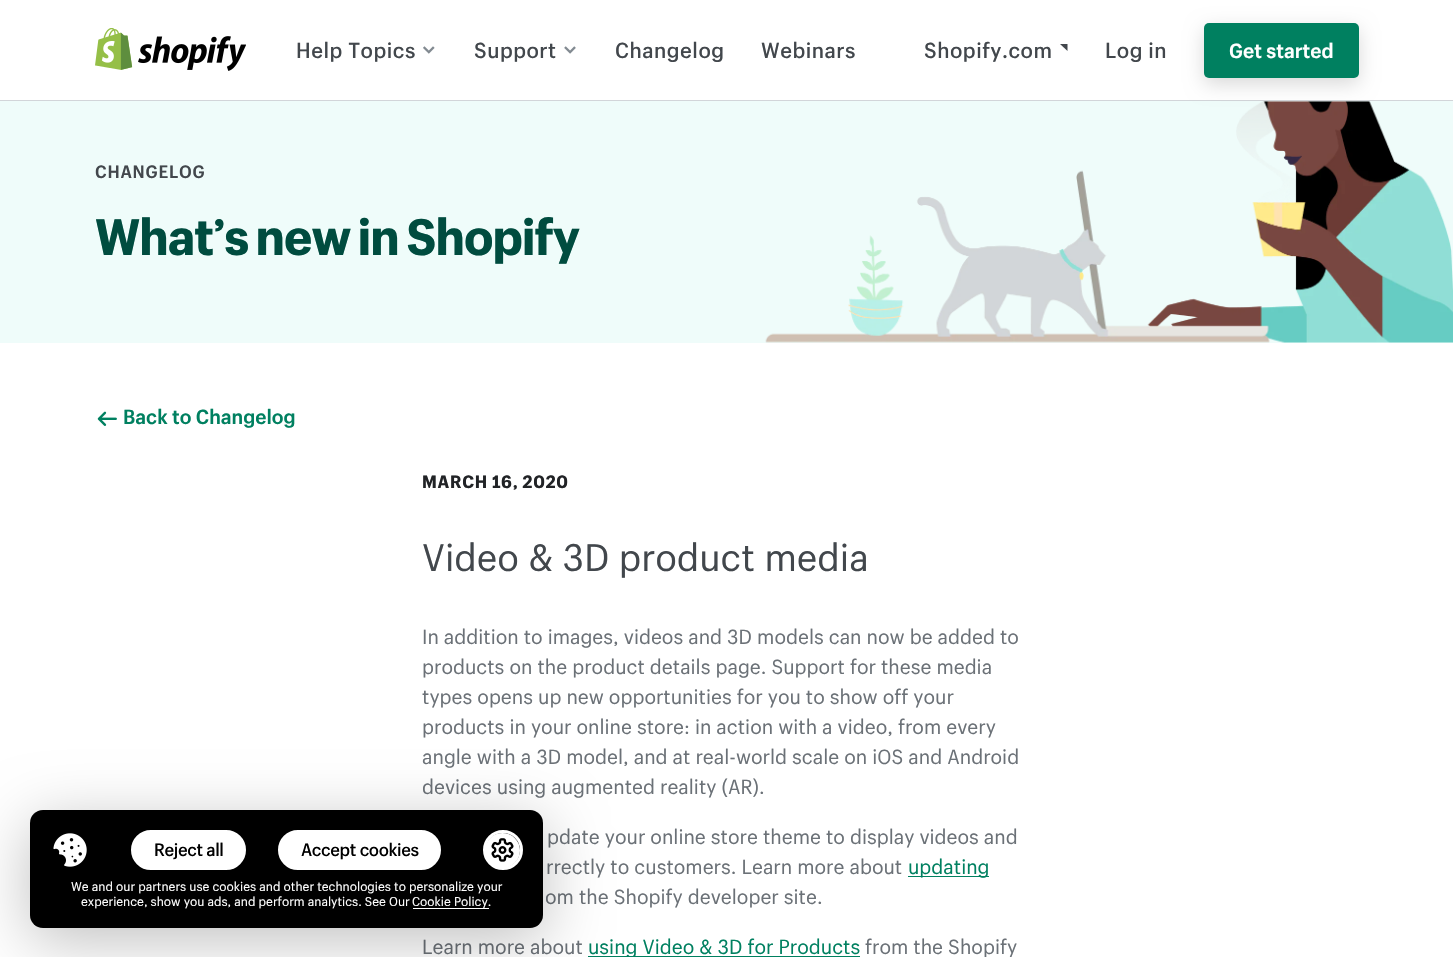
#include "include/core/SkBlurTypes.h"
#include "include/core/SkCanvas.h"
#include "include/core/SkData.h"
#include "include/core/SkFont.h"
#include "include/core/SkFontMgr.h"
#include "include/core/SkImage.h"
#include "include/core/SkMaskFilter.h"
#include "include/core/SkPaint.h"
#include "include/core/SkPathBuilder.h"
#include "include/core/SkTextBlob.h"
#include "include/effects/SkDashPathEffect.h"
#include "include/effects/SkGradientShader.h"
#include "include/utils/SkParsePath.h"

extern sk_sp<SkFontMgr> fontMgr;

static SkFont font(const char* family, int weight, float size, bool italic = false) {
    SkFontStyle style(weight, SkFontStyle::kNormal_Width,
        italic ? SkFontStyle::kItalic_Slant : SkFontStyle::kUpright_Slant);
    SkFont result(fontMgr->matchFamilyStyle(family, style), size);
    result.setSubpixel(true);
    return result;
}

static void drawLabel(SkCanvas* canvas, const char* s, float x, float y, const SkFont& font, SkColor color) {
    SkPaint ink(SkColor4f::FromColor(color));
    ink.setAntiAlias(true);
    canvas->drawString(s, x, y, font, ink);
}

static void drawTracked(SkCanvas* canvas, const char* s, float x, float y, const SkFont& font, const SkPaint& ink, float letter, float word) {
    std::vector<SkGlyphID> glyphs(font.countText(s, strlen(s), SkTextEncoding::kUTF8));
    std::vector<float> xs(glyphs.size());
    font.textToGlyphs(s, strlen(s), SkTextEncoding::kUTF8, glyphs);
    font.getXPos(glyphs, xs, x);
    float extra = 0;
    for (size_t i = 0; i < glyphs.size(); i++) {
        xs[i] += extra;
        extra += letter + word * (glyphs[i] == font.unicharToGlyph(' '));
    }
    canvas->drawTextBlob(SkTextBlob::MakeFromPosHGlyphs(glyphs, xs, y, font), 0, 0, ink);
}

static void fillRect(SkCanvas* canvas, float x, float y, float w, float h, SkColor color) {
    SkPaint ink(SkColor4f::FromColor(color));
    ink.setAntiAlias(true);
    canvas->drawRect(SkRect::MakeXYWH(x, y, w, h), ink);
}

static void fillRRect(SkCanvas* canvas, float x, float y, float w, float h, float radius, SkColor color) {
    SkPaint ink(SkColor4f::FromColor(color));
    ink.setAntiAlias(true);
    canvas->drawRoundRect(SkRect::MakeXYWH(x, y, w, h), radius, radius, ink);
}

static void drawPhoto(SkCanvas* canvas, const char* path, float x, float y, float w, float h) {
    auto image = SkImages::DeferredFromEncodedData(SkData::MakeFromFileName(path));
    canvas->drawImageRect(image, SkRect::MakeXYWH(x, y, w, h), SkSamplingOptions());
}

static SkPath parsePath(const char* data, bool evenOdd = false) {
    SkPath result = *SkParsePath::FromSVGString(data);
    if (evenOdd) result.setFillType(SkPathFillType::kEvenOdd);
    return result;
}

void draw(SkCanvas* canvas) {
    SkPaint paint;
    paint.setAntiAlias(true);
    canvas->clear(0xFFFFFFFF);
    fillRect(canvas, 0, 100, 1453, 1, 0xFFD2D5D9);
    drawPhoto(canvas, "assets/img1.png", 95, 28, 151, 43);
    SkFont font1 = font("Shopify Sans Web", 500, 21.25f);
    paint.setColor(0xFF42474C);
    drawTracked(canvas, "Help Topics", 296, 58, font1, paint, 0.5f, 0);
    drawPhoto(canvas, "assets/img2.png", 423, 46, 12, 8);
    drawTracked(canvas, "Support", 474, 58, font1, paint, 0.5f, 0);
    drawPhoto(canvas, "assets/img3.png", 564, 46, 12, 8);
    drawTracked(canvas, "Changelog", 615, 58, font1, paint, 0.5f, 0);
    drawTracked(canvas, "Webinars", 761, 58, font1, paint, 0.5f, 0);
    drawTracked(canvas, "Shopify.com", 924, 58, font1, paint, 0.5f, 0);
    canvas->drawPath(parsePath("M1060 44H1067.5V51Z"), paint);
    drawTracked(canvas, "Log in", 1105, 58, font1, paint, 0.5f, 0);
    fillRect(canvas, 0, 101, 1453, 242, 0xFFEFFCFA);
    drawPhoto(canvas, "assets/img4.png", 765, 101, 688, 242);
    paint.setColor(0x26000000);
    paint.setMaskFilter(SkMaskFilter::MakeBlur(kNormal_SkBlurStyle, 9.5f));
    canvas->drawRoundRect(SkRect::MakeXYWH(1204, 29, 155, 55), 5, 5, paint);
    paint.setMaskFilter(nullptr);
    fillRRect(canvas, 1204, 23, 155, 55, 5, 0xFF008060);
    SkFont font2 = font("Shopify Sans Web", 700, 20);
    drawLabel(canvas, "Get started", 1229, 58, font2, 0xFFFFFFFF);
    SkFont font3 = font("Shopify Sans Web", 700, 17.5f);
    paint.setColor(0xFF42474C);
    drawTracked(canvas, "CHANGELOG", 95, 178, font3, paint, 0.75f, 0);
    SkFont font4 = font("Shopify Sans Web", 800, 50);
    paint.setColor(0xFF004C3F);
    drawTracked(canvas, "What’s new in Shopify", 95, 255, font4, paint, -1, -1.5f);
    drawPhoto(canvas, "assets/img5.png", 97, 411, 20, 15);
    drawLabel(canvas, "Back to Changelog", 123, 424, font2, 0xFF008060);
    SkFont font5 = font("Shopify Sans Web", 800, 17.5f);
    paint.setColor(0xFF212326);
    drawTracked(canvas, "MARCH 16, 2020", 422, 488, font5, paint, 0.75f, 0);
    SkFont font6 = font("Shopify Sans Web", 400, 37.5f);
    drawLabel(canvas, "Video & 3D product media", 422, 571, font6, 0xFF42474C);
    SkFont font7 = font("Shopify Sans Web", 400, 20);
    drawLabel(canvas, "In addition to images, videos and 3D models can now be added to", 422, 644, font7, 0xFF6B7177);
    drawLabel(canvas, "products on the product details page. Support for these media", 422, 674, font7, 0xFF6B7177);
    drawLabel(canvas, "types opens up new opportunities for you to show off your", 422, 704, font7, 0xFF6B7177);
    drawLabel(canvas, "products in your online store: in action with a video, from every", 422, 734, font7, 0xFF6B7177);
    drawLabel(canvas, "angle with a 3D model, and at real-world scale on iOS and Android", 422, 764, font7, 0xFF6B7177);
    drawLabel(canvas, "devices using augmented reality (AR).", 422, 794, font7, 0xFF6B7177);
    drawLabel(canvas, "pdate your online store theme to display videos and", 547, 844, font7, 0xFF6B7177);
    drawLabel(canvas, "rrectly to customers. Learn more about", 546, 874, font7, 0xFF6B7177);
    fillRect(canvas, 908, 876, 81, 1, 0xFF008060);
    drawLabel(canvas, "updating", 908, 874, font7, 0xFF008060);
    drawLabel(canvas, "om the Shopify developer site.", 545, 904, font7, 0xFF6B7177);
    drawLabel(canvas, "Learn more about", 422, 954, font7, 0xFF6B7177);
    fillRect(canvas, 588, 956, 272, 1, 0xFF008060);
    drawLabel(canvas, "using Video & 3D for Products", 588, 954, font7, 0xFF008060);
    drawLabel(canvas, "from the Shopify", 865, 954, font7, 0xFF6B7177);
    paint.setColor(0x40000000);
    paint.setMaskFilter(SkMaskFilter::MakeBlur(kNormal_SkBlurStyle, 31));
    canvas->drawRoundRect(SkRect::MakeXYWH(30, 823, 513, 117), 13, 13, paint);
    paint.setMaskFilter(nullptr);
    fillRRect(canvas, 30, 810, 513, 118, 13, 0xFF000000);
    drawPhoto(canvas, "assets/img6.png", 53, 833, 34, 34);
    paint.setColor(0xFFFFFFFF);
    canvas->drawRoundRect(SkRect::MakeXYWH(132.5f, 831.5f, 112, 37), 18.5f, 18.5f, paint);
    paint.setStroke(true);
    paint.setStrokeWidth(3);
    canvas->drawRoundRect(SkRect::MakeXYWH(132.5f, 831.5f, 112, 37), 18.5f, 18.5f, paint);
    SkFont font8 = font("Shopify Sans", 500, 17.5f);
    paint.setStroke(false);
    paint.setColor(0xFF000000);
    drawTracked(canvas, "Reject all", 154, 856, font8, paint, -0.4f, 0);
    paint.setColor(0xFFFFFFFF);
    canvas->drawRoundRect(SkRect::MakeXYWH(279.5f, 831.5f, 160, 37), 18.5f, 18.5f, paint);
    paint.setStroke(true);
    canvas->drawRoundRect(SkRect::MakeXYWH(279.5f, 831.5f, 160, 37), 18.5f, 18.5f, paint);
    paint.setStroke(false);
    paint.setColor(0xFF000000);
    drawTracked(canvas, "Accept cookies", 301, 856, font8, paint, -0.4f, 0);
    paint.setStroke(true);
    paint.setColor(0xFFFFFFFF);
    canvas->drawCircle(503, 850, 18.5f, paint);
    paint.setStroke(false);
    canvas->drawCircle(502.5f, 850.5f, 17.5f, paint);
    drawPhoto(canvas, "assets/img7.png", 491, 838, 23, 24);
    SkFont font9 = font("Shopify Sans Web", 400, 12.5f);
    drawLabel(canvas, "We and our partners use cookies and other technologies to personalize your", 71, 891, font9, 0xFFFFFFFF);
    drawLabel(canvas, "experience, show you ads, and perform analytics. See Our", 81, 906, font9, 0xFFFFFFFF);
    fillRect(canvas, 413, 908, 76, 1, 0xFFFFFFFF);
    drawLabel(canvas, "Cookie Policy.", 412, 906, font9, 0xFFFFFFFF);
}
